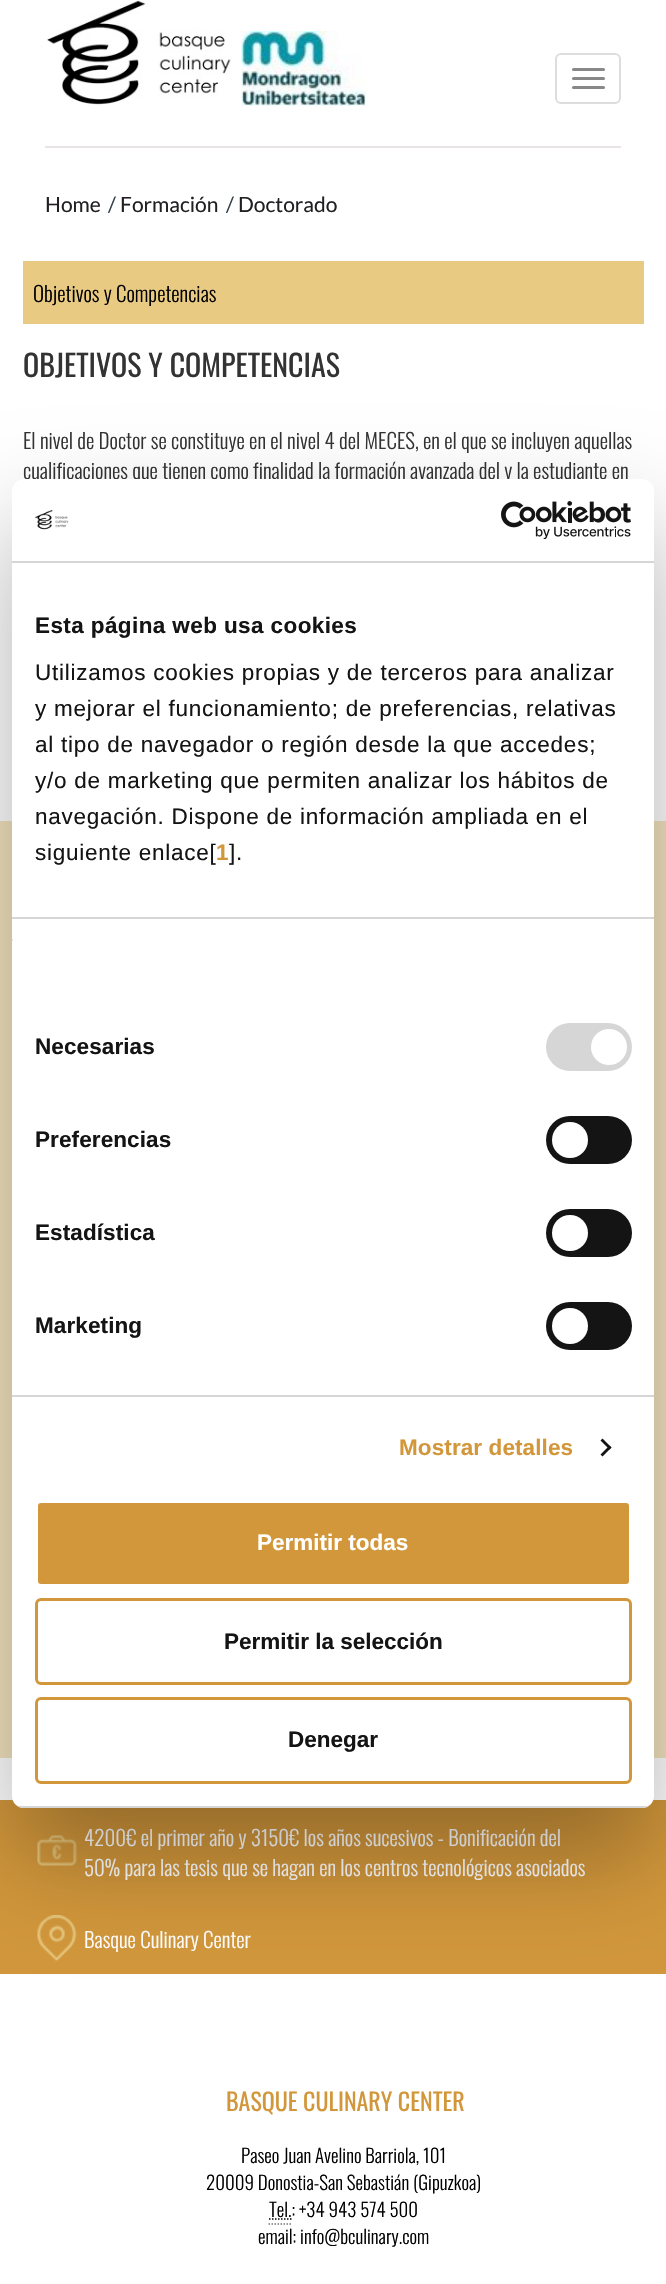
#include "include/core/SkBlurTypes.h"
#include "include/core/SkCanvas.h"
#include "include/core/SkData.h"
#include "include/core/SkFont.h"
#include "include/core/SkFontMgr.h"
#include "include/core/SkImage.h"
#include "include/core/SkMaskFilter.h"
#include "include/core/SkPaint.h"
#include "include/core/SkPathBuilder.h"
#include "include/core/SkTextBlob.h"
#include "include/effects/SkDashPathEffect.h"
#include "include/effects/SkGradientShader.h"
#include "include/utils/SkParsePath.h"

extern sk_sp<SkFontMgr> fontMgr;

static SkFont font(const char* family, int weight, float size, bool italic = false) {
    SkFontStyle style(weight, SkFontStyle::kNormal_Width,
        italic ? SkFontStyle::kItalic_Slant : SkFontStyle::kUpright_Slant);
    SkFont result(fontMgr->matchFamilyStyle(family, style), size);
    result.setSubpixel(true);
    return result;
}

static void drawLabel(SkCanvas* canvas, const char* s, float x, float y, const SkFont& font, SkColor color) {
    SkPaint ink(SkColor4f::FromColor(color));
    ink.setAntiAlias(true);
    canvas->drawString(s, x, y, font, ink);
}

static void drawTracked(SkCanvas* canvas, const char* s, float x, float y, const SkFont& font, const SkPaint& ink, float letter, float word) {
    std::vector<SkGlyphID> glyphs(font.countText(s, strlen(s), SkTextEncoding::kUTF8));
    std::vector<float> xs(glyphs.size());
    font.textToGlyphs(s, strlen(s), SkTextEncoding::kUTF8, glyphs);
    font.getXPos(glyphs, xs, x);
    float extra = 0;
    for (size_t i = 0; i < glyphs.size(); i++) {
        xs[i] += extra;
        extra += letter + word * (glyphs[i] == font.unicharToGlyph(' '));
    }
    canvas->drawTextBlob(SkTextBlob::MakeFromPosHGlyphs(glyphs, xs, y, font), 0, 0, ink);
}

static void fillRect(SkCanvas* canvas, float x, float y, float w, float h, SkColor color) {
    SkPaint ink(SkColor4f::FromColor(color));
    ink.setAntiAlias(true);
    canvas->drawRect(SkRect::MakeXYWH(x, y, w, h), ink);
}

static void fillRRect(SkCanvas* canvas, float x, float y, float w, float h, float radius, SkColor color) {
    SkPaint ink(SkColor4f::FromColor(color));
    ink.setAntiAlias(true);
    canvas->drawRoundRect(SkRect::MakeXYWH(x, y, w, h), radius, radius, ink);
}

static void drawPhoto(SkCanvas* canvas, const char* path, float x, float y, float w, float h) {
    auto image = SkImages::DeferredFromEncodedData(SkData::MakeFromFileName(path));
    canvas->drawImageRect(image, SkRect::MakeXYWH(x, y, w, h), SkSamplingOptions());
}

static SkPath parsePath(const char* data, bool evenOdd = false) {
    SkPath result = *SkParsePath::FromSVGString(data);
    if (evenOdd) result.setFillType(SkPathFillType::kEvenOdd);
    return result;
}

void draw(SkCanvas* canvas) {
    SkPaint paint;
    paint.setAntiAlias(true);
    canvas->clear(0xFFFFFFFF);
    drawPhoto(canvas, "assets/img1.png", 47, 0, 184, 105);
    drawPhoto(canvas, "assets/img2.png", 241, 31, 125, 75);
    paint.setStroke(true);
    paint.setStrokeWidth(2);
    paint.setColor(0xFFDDDDDD);
    canvas->drawRoundRect(SkRect::MakeXYWH(556, 54, 64, 49), 5, 5, paint);
    fillRRect(canvas, 572, 68, 33, 3, 1.5f, 0xFF888888);
    fillRRect(canvas, 572, 77, 33, 3, 1.5f, 0xFF888888);
    fillRRect(canvas, 572, 86, 33, 3, 1.5f, 0xFF888888);
    fillRect(canvas, 45, 146, 576, 2, 0xFFEAE5E5);
    SkFont font1 = font("Lato", 400, 21);
    drawLabel(canvas, "Home", 45, 212, font1, 0xFF211F22);
    drawLabel(canvas, "/", 108, 212, font1, 0xFF344048);
    drawLabel(canvas, "Formación", 120, 212, font1, 0xFF211F22);
    drawLabel(canvas, "/", 226, 212, font1, 0xFF344048);
    drawLabel(canvas, "Doctorado", 238, 212, font1, 0xFF211F22);
    fillRect(canvas, 23, 261, 621, 63, 0xFFE8CA82);
    SkFont font2 = font("Oswald", 300, 21);
    drawLabel(canvas, "Objetivos y Competencias", 33, 302, font2, 0xFF000000);
    SkFont font3 = font("Oswald", 400, 30);
    drawLabel(canvas, "OBJETIVOS Y COMPETENCIAS", 23, 377, font3, 0xFF333333);
    drawLabel(canvas, "El nivel de Doctor se constituye en el nivel 4 del MECES, en el que se incluyen aquellas", 23, 449, font2, 0xFF333333);
    drawLabel(canvas, "cualificaciones que tienen como finalidad la formación avanzada del y la estudiante en", 23, 479, font2, 0xFF333333);
    fillRect(canvas, 0, 821, 666, 937, 0xFFF3E4C0);
    fillRect(canvas, 0, 1800, 666, 174, 0xFFD2973B);
    drawPhoto(canvas, "assets/img3.png", 37, 1835, 40, 31);
    drawLabel(canvas, "4200€ el primer año y 3150€ los años sucesivos - Bonificación del", 84, 1846, font2, 0xFFFFFFFF);
    drawLabel(canvas, "50% para las tesis que se hagan en los centros tecnológicos asociados", 84, 1876, font2, 0xFFFFFFFF);
    drawPhoto(canvas, "assets/img4.png", 37, 1915, 40, 47);
    drawLabel(canvas, "Basque Culinary Center", 84, 1948, font2, 0xFFFFFFFF);
    SkFont font4 = font("Oswald", 400, 24);
    drawLabel(canvas, "BASQUE CULINARY CENTER", 226, 2111, font4, 0xFFD2973B);
    SkFont font5 = font("Oswald", 300, 18.9f);
    drawLabel(canvas, "Paseo Juan Avelino Barriola, 101", 241, 2163, font5, 0xFF000000);
    drawLabel(canvas, "20009 Donostia-San Sebastián (Gipuzkoa)", 206, 2190, font5, 0xFF000000);
    drawLabel(canvas, "Tel.: +34 943 574 500", 269, 2217, font5, 0xFF000000);
    paint.setStrokeWidth(1.5f);
    paint.setColor(0xFF777777);
    paint.setPathEffect(SkDashPathEffect::Make({{1.5f, 1.5f}}, 0));
    canvas->drawPath(parsePath("M268.5 2224H291"), paint);
    paint.setPathEffect(nullptr);
    paint.setColor(0xFF000000);
    paint.setPathEffect(SkDashPathEffect::Make({{1.5f, 1.5f}}, 0));
    canvas->drawPath(parsePath("M269 2219H291.5"), paint);
    paint.setPathEffect(nullptr);
    drawLabel(canvas, "email: info@bculinary.com", 258, 2244, font5, 0xFF000000);
    paint.setStroke(false);
    paint.setColor(0x4D000000);
    paint.setMaskFilter(SkMaskFilter::MakeBlur(kNormal_SkBlurStyle, 51));
    canvas->drawRoundRect(SkRect::MakeXYWH(12, 527, 642, 1329), 12, 12, paint);
    paint.setMaskFilter(nullptr);
    fillRRect(canvas, 12, 479, 642, 1329, 12, 0xFFFFFFFF);
    fillRect(canvas, 12, 561, 642, 2, 0xFFD6D6D6);
    drawPhoto(canvas, "assets/img5.png", 34, 510, 35, 20);
    drawPhoto(canvas, "assets/img6.png", 501, 501, 130, 38);
    fillRect(canvas, 12, 917, 642, 2, 0xFFD6D6D6);
    SkFont font6 = font("Liberation Sans", 700, 22.5f);
    paint.setColor(0xFF141414);
    drawTracked(canvas, "Esta página web usa cookies", 35, 633, font6, paint, 0.4f, 0);
    SkFont font7 = font("Liberation Sans", 400, 22.5f);
    drawTracked(canvas, "Utilizamos cookies propias y de terceros para analizar", 35, 680, font7, paint, 0.75f, 0);
    drawTracked(canvas, "y mejorar el funcionamiento; de preferencias, relativas", 35, 716, font7, paint, 0.75f, 0);
    drawTracked(canvas, "al tipo de navegador o región desde la que accedes;", 35, 752, font7, paint, 0.75f, 0);
    drawTracked(canvas, "y/o de marketing que permiten analizar los hábitos de", 35, 788, font7, paint, 0.75f, 0);
    drawTracked(canvas, "navegación. Dispone de información ampliada en el", 35, 824, font7, paint, 0.75f, 0);
    drawTracked(canvas, "siguiente enlace[", 35, 860, font7, paint, 0.75f, 0);
    paint.setColor(0xFFD2973B);
    drawTracked(canvas, "1", 216, 860, font6, paint, 0.75f, 0);
    paint.setColor(0xFF141414);
    drawTracked(canvas, "].", 229, 860, font7, paint, 0.75f, 0);
    fillRect(canvas, 12, 1395, 642, 2, 0xFFD6D6D6);
    fillRect(canvas, 12, 939, 1, 2, 0xFFE5E5E5);
    drawTracked(canvas, "Necesarias", 35, 1054, font6, paint, 0.1f, 0);
    fillRRect(canvas, 546, 1023, 86, 48, 24, 0xFFD6D6D6);
    paint.setColor(0xFFFFFFFF);
    canvas->drawCircle(609, 1047, 18, paint);
    paint.setColor(0xFF141414);
    drawTracked(canvas, "Preferencias", 35, 1147, font6, paint, 0.1f, 0);
    fillRRect(canvas, 546, 1116, 86, 48, 24, 0xFF141414);
    paint.setColor(0xFFFFFFFF);
    canvas->drawCircle(570, 1140, 18, paint);
    paint.setColor(0xFF141414);
    drawTracked(canvas, "Estadística", 35, 1240, font6, paint, 0.1f, 0);
    fillRRect(canvas, 546, 1209, 86, 48, 24, 0xFF141414);
    paint.setColor(0xFFFFFFFF);
    canvas->drawCircle(570, 1233, 18, paint);
    paint.setColor(0xFF141414);
    drawTracked(canvas, "Marketing", 35, 1333, font6, paint, 0.1f, 0);
    fillRRect(canvas, 546, 1302, 86, 48, 24, 0xFF141414);
    paint.setColor(0xFFFFFFFF);
    canvas->drawCircle(570, 1326, 18, paint);
    paint.setColor(0xFFD2973B);
    drawTracked(canvas, "Mostrar detalles", 399, 1455, font6, paint, 0.1f, 0);
    paint.setColor(0xFF141414);
    canvas->drawPath(parsePath("M602.5 1438.5L611.5 1447.5L609.5 1449.5L600.5 1440.5Z"), paint);
    canvas->drawPath(parsePath("M609.5 1445.5L611.5 1447.5L602.5 1456.5L600.5 1454.5Z"), paint);
    canvas->save();
    canvas->clipPath(parsePath("M24 479H642C648.5 479 654 484.5 654 491V1796C654 1802.5 648.5 1808 642 1808H24C17.5 1808 12 1802.5 12 1796V491C12 484.5 17.5 479 24 479Z"), true);
    fillRect(canvas, 12, 1806, 642, 2, 0xFFD6D6D6);
    canvas->restore();
    paint.setColor(0xFFD2973B);
    canvas->drawRoundRect(SkRect::MakeXYWH(36.5f, 1501.5f, 594, 84), 4.5f, 4.5f, paint);
    paint.setStroke(true);
    paint.setStrokeWidth(3);
    paint.setColor(0xFFFFFFFF);
    canvas->drawRoundRect(SkRect::MakeXYWH(36.5f, 1501.5f, 594, 84), 4.5f, 4.5f, paint);
    drawLabel(canvas, "Permitir todas", 257, 1550, font6, 0xFFFFFFFF);
    paint.setColor(0xFFD2973B);
    canvas->drawRoundRect(SkRect::MakeXYWH(36.5f, 1599.5f, 594, 84), 4.5f, 4.5f, paint);
    drawLabel(canvas, "Permitir la selección", 224, 1649, font6, 0xFF141414);
    canvas->drawRoundRect(SkRect::MakeXYWH(36.5f, 1698.5f, 594, 84), 4.5f, 4.5f, paint);
    drawLabel(canvas, "Denegar", 288, 1747, font6, 0xFF141414);
}
